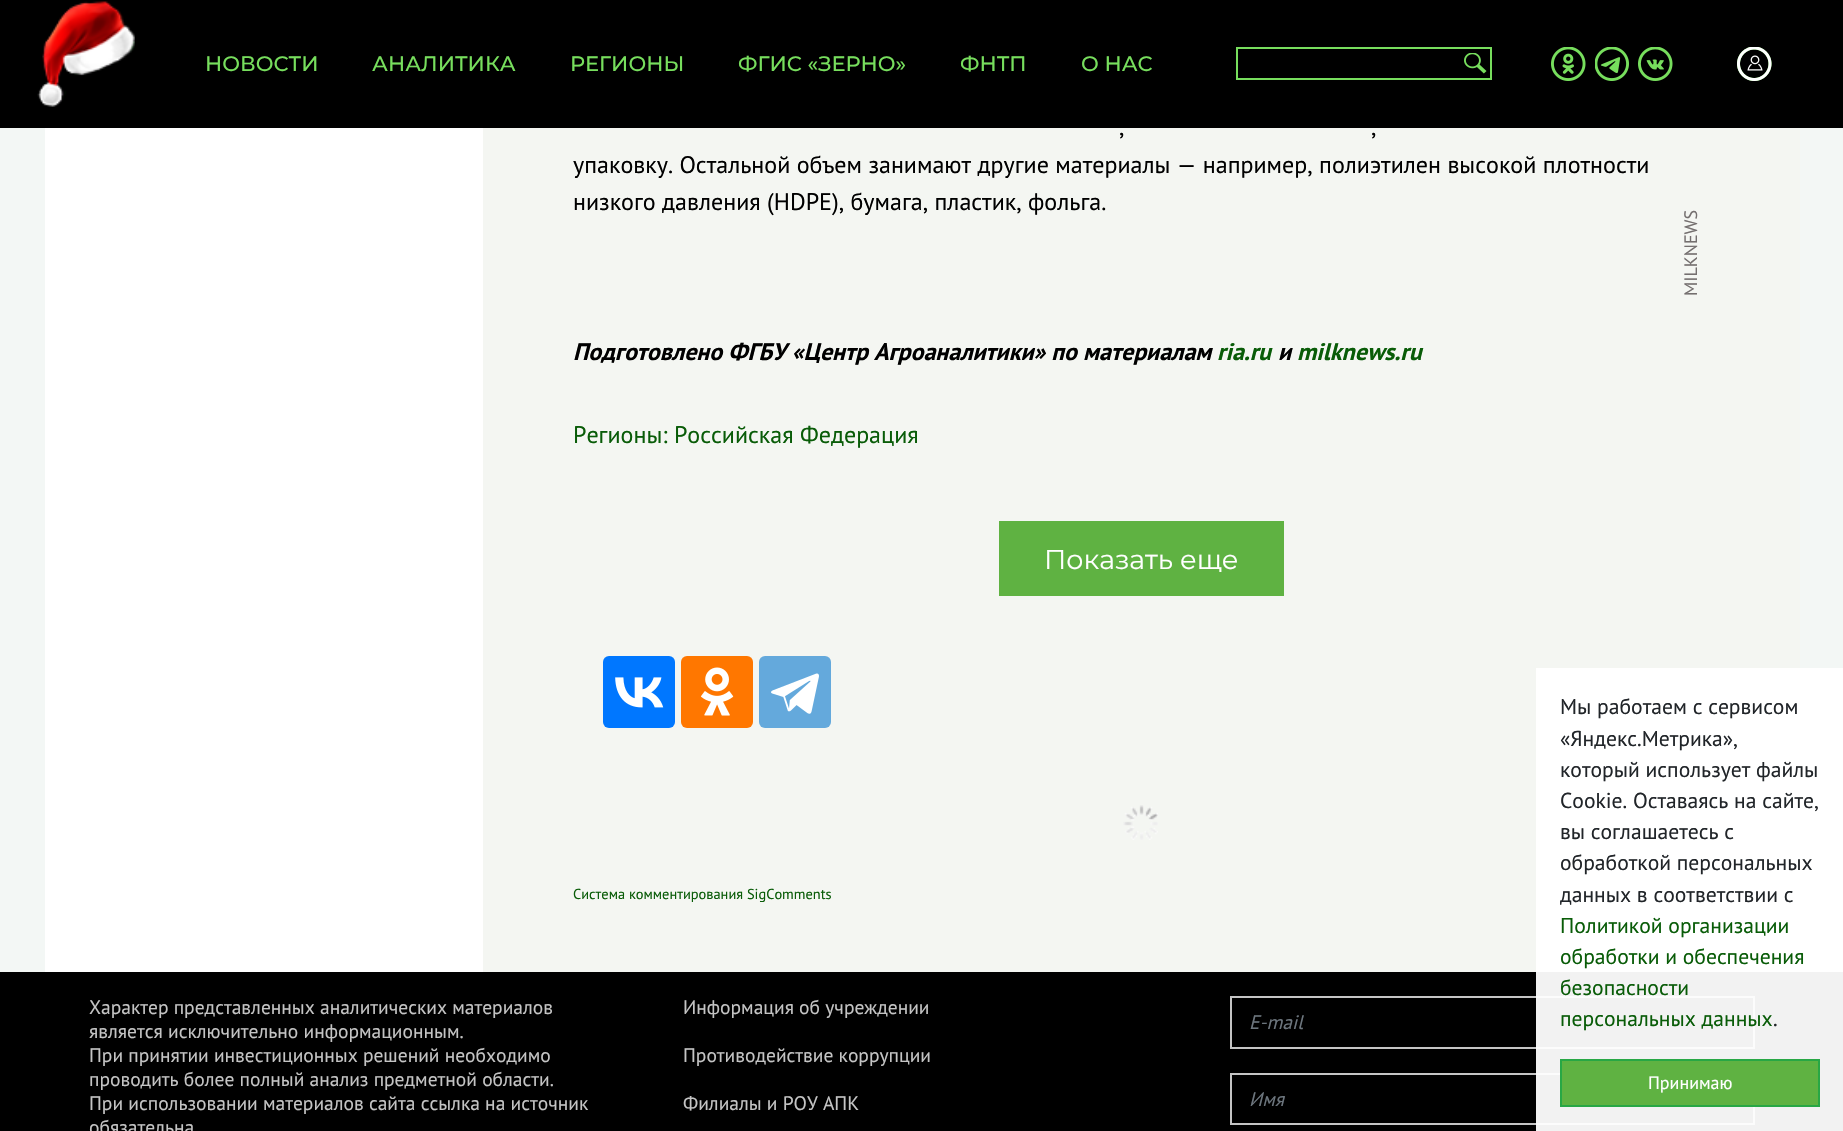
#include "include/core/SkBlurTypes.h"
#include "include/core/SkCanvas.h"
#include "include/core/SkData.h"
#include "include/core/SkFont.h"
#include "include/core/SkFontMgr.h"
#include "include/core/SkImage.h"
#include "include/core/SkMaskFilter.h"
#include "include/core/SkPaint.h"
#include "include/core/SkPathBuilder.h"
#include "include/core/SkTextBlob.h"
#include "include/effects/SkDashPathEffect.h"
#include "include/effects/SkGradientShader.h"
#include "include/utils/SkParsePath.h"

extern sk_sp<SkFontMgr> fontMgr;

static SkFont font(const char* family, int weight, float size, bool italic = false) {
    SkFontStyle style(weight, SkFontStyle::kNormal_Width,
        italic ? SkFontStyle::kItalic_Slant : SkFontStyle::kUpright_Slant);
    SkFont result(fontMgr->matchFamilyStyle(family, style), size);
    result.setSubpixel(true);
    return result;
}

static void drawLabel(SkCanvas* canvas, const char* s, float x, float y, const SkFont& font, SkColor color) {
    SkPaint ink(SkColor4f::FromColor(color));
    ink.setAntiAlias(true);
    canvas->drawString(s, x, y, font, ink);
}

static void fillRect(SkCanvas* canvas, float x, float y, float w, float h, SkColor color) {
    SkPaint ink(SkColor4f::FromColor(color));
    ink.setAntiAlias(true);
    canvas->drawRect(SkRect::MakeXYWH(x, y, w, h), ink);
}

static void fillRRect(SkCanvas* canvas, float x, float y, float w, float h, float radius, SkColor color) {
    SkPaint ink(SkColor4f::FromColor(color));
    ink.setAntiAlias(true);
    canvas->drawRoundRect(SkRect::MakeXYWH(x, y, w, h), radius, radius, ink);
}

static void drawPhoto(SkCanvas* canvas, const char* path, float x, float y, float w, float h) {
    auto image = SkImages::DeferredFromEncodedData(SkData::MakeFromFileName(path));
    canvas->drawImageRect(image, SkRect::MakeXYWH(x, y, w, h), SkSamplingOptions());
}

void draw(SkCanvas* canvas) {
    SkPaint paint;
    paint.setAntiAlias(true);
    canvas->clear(0xFFF3F7F5);
    fillRect(canvas, 0, 0, 1843, 128, 0xFF000000);
    drawPhoto(canvas, "assets/img1.png", 37, 1, 98, 106);
    SkFont font1 = font("Montserrat", 500, 21);
    drawLabel(canvas, "НОВОСТИ", 205, 71, font1, 0xFF77DE5D);
    drawLabel(canvas, "АНАЛИТИКА", 372, 71, font1, 0xFF77DE5D);
    drawLabel(canvas, "РЕГИОНЫ", 570, 71, font1, 0xFF77DE5D);
    drawLabel(canvas, "ФГИС «ЗЕРНО»", 738, 71, font1, 0xFF77DE5D);
    drawLabel(canvas, "ФНТП", 960, 71, font1, 0xFF77DE5D);
    drawLabel(canvas, "О НАС", 1081, 71, font1, 0xFF77DE5D);
    fillRect(canvas, 1236, 47, 255, 2, 0xFF77DE5D);
    fillRect(canvas, 1236, 78, 225, 2, 0xFF77DE5D);
    fillRect(canvas, 1236, 47, 2, 33, 0xFF77DE5D);
    drawPhoto(canvas, "assets/img2.png", 1464, 53, 23, 21);
    fillRect(canvas, 1490, 47, 2, 33, 0xFF77DE5D);
    fillRect(canvas, 1461, 78, 30, 2, 0xFF77DE5D);
    drawPhoto(canvas, "assets/img3.png", 1551, 47, 35, 34);
    drawPhoto(canvas, "assets/img4.png", 1595, 47, 34, 34);
    drawPhoto(canvas, "assets/img5.png", 1638, 47, 35, 34);
    drawPhoto(canvas, "assets/img6.png", 1737, 47, 35, 34);
    fillRect(canvas, 45, 128, 438, 844, 0xFFFFFFFF);
    fillRect(canvas, 483, 128, 1317, 844, 0xFFF4F6F2);
    SkFont font2 = font("PT Sans", 400, 24);
    drawLabel(canvas, ",", 1119, 135, font2, 0xFF000000);
    drawLabel(canvas, ",", 1371, 135, font2, 0xFF000000);
    drawLabel(canvas, "упаковку. Остальной объем занимают другие материалы — например, полиэтилен высокой плотности", 573, 173, font2, 0xFF000000);
    drawLabel(canvas, "низкого давления (HDPE), бумага, пластик, фольга.", 573, 210, font2, 0xFF000000);
    SkFont font3 = font("PT Sans", 400, 18);
    canvas->save();
    canvas->rotate(-90, 1697, 296);
    drawLabel(canvas, "MILKNEWS", 1697, 296, font3, 0xFF746F6F);
    canvas->restore();
    SkFont font4 = font("PT Sans", 700, 24, true);
    drawLabel(canvas, "Подготовлено ФГБУ «Центр Агроаналитики» по материалам", 573, 360, font4, 0xFF000000);
    drawLabel(canvas, "ria.ru", 1217, 360, font4, 0xFF095C08);
    drawLabel(canvas, "и", 1278, 360, font4, 0xFF000000);
    drawLabel(canvas, "milknews.ru", 1297, 360, font4, 0xFF095C08);
    drawLabel(canvas, "Регионы: Российская Федерация", 573, 443, font2, 0xFF095C08);
    fillRect(canvas, 999, 521, 285, 75, 0xFF5FB242);
    SkFont font5 = font("Montserrat", 400, 27);
    drawLabel(canvas, "Показать еще", 1044, 569, font5, 0xFFFFFFFF);
    fillRRect(canvas, 603, 656, 72, 72, 6, 0xFF0077FF);
    drawPhoto(canvas, "assets/img7.png", 615, 677, 49, 31);
    fillRRect(canvas, 681, 656, 72, 72, 6, 0xFFFF7700);
    drawPhoto(canvas, "assets/img8.png", 701, 667, 33, 49);
    fillRRect(canvas, 759, 656, 72, 72, 6, 0xFF64A9DC);
    drawPhoto(canvas, "assets/img9.png", 771, 673, 48, 41);
    drawPhoto(canvas, "assets/img10.png", 1123, 805, 35, 35);
    SkFont font6 = font("PT Sans", 400, 14.4f);
    drawLabel(canvas, "Система комментирования SigComments", 573, 899, font6, 0xFF095C08);
    fillRect(canvas, 0, 972, 1843, 159, 0xFF000000);
    SkFont font7 = font("PT Sans", 400, 19.5f);
    drawLabel(canvas, "Характер представленных аналитических материалов", 89, 1014, font7, 0xFFC4C4C4);
    drawLabel(canvas, "является исключительно информационным.", 89, 1038, font7, 0xFFC4C4C4);
    drawLabel(canvas, "При принятии инвестиционных решений необходимо", 89, 1062, font7, 0xFFC4C4C4);
    drawLabel(canvas, "проводить более полный анализ предметной области.", 89, 1086, font7, 0xFFC4C4C4);
    drawLabel(canvas, "При использовании материалов сайта ссылка на источник", 89, 1110, font7, 0xFFC4C4C4);
    drawLabel(canvas, "обязательна", 89, 1134, font7, 0xFFC4C4C4);
    drawLabel(canvas, "Информация об учреждении", 683, 1014, font7, 0xFFC4C4C4);
    drawLabel(canvas, "Противодействие коррупции", 683, 1062, font7, 0xFFC4C4C4);
    drawLabel(canvas, "Филиалы и РОУ АПК", 683, 1110, font7, 0xFFC4C4C4);
    paint.setStroke(true);
    paint.setStrokeWidth(2);
    paint.setColor(0xFFC4C4C4);
    canvas->drawRect(SkRect::MakeXYWH(1231, 997, 523, 51), paint);
    SkFont font8 = font("PT Sans", 400, 19.5f, true);
    drawLabel(canvas, "E-mail", 1249, 1029, font8, 0xFF6C757D);
    canvas->drawRect(SkRect::MakeXYWH(1231, 1074, 523, 50), paint);
    drawLabel(canvas, "Имя", 1249, 1106, font8, 0xFF6C757D);
    fillRect(canvas, 1536, 668, 307, 463, 0xF2FFFFFF);
    SkFont font9 = font("PT Sans", 400, 21.6f);
    drawLabel(canvas, "Мы работаем с сервисом", 1560, 714, font9, 0xFF212529);
    drawLabel(canvas, "«Яндекс.Метрика»,", 1560, 746, font9, 0xFF212529);
    drawLabel(canvas, "который использует файлы", 1560, 777, font9, 0xFF212529);
    drawLabel(canvas, "Cookie. Оставаясь на сайте,", 1560, 808, font9, 0xFF212529);
    drawLabel(canvas, "вы соглашаетесь с", 1560, 839, font9, 0xFF212529);
    drawLabel(canvas, "обработкой персональных", 1560, 870, font9, 0xFF212529);
    drawLabel(canvas, "данных в соответствии с", 1560, 902, font9, 0xFF212529);
    drawLabel(canvas, "Политикой организации", 1560, 933, font9, 0xFF095C08);
    drawLabel(canvas, "обработки и обеспечения", 1560, 964, font9, 0xFF095C08);
    drawLabel(canvas, "безопасности", 1560, 995, font9, 0xFF095C08);
    drawLabel(canvas, "персональных данных", 1560, 1026, font9, 0xFF095C08);
    drawLabel(canvas, ".", 1773, 1026, font9, 0xFF212529);
    paint.setStroke(false);
    paint.setColor(0xFF5FB242);
    canvas->drawRect(SkRect::MakeXYWH(1561, 1060, 258, 46), paint);
    paint.setStroke(true);
    paint.setColor(0xFF28A745);
    canvas->drawRect(SkRect::MakeXYWH(1561, 1060, 258, 46), paint);
    drawLabel(canvas, "Принимаю", 1648, 1089, font3, 0xFFFFFFFF);
}
